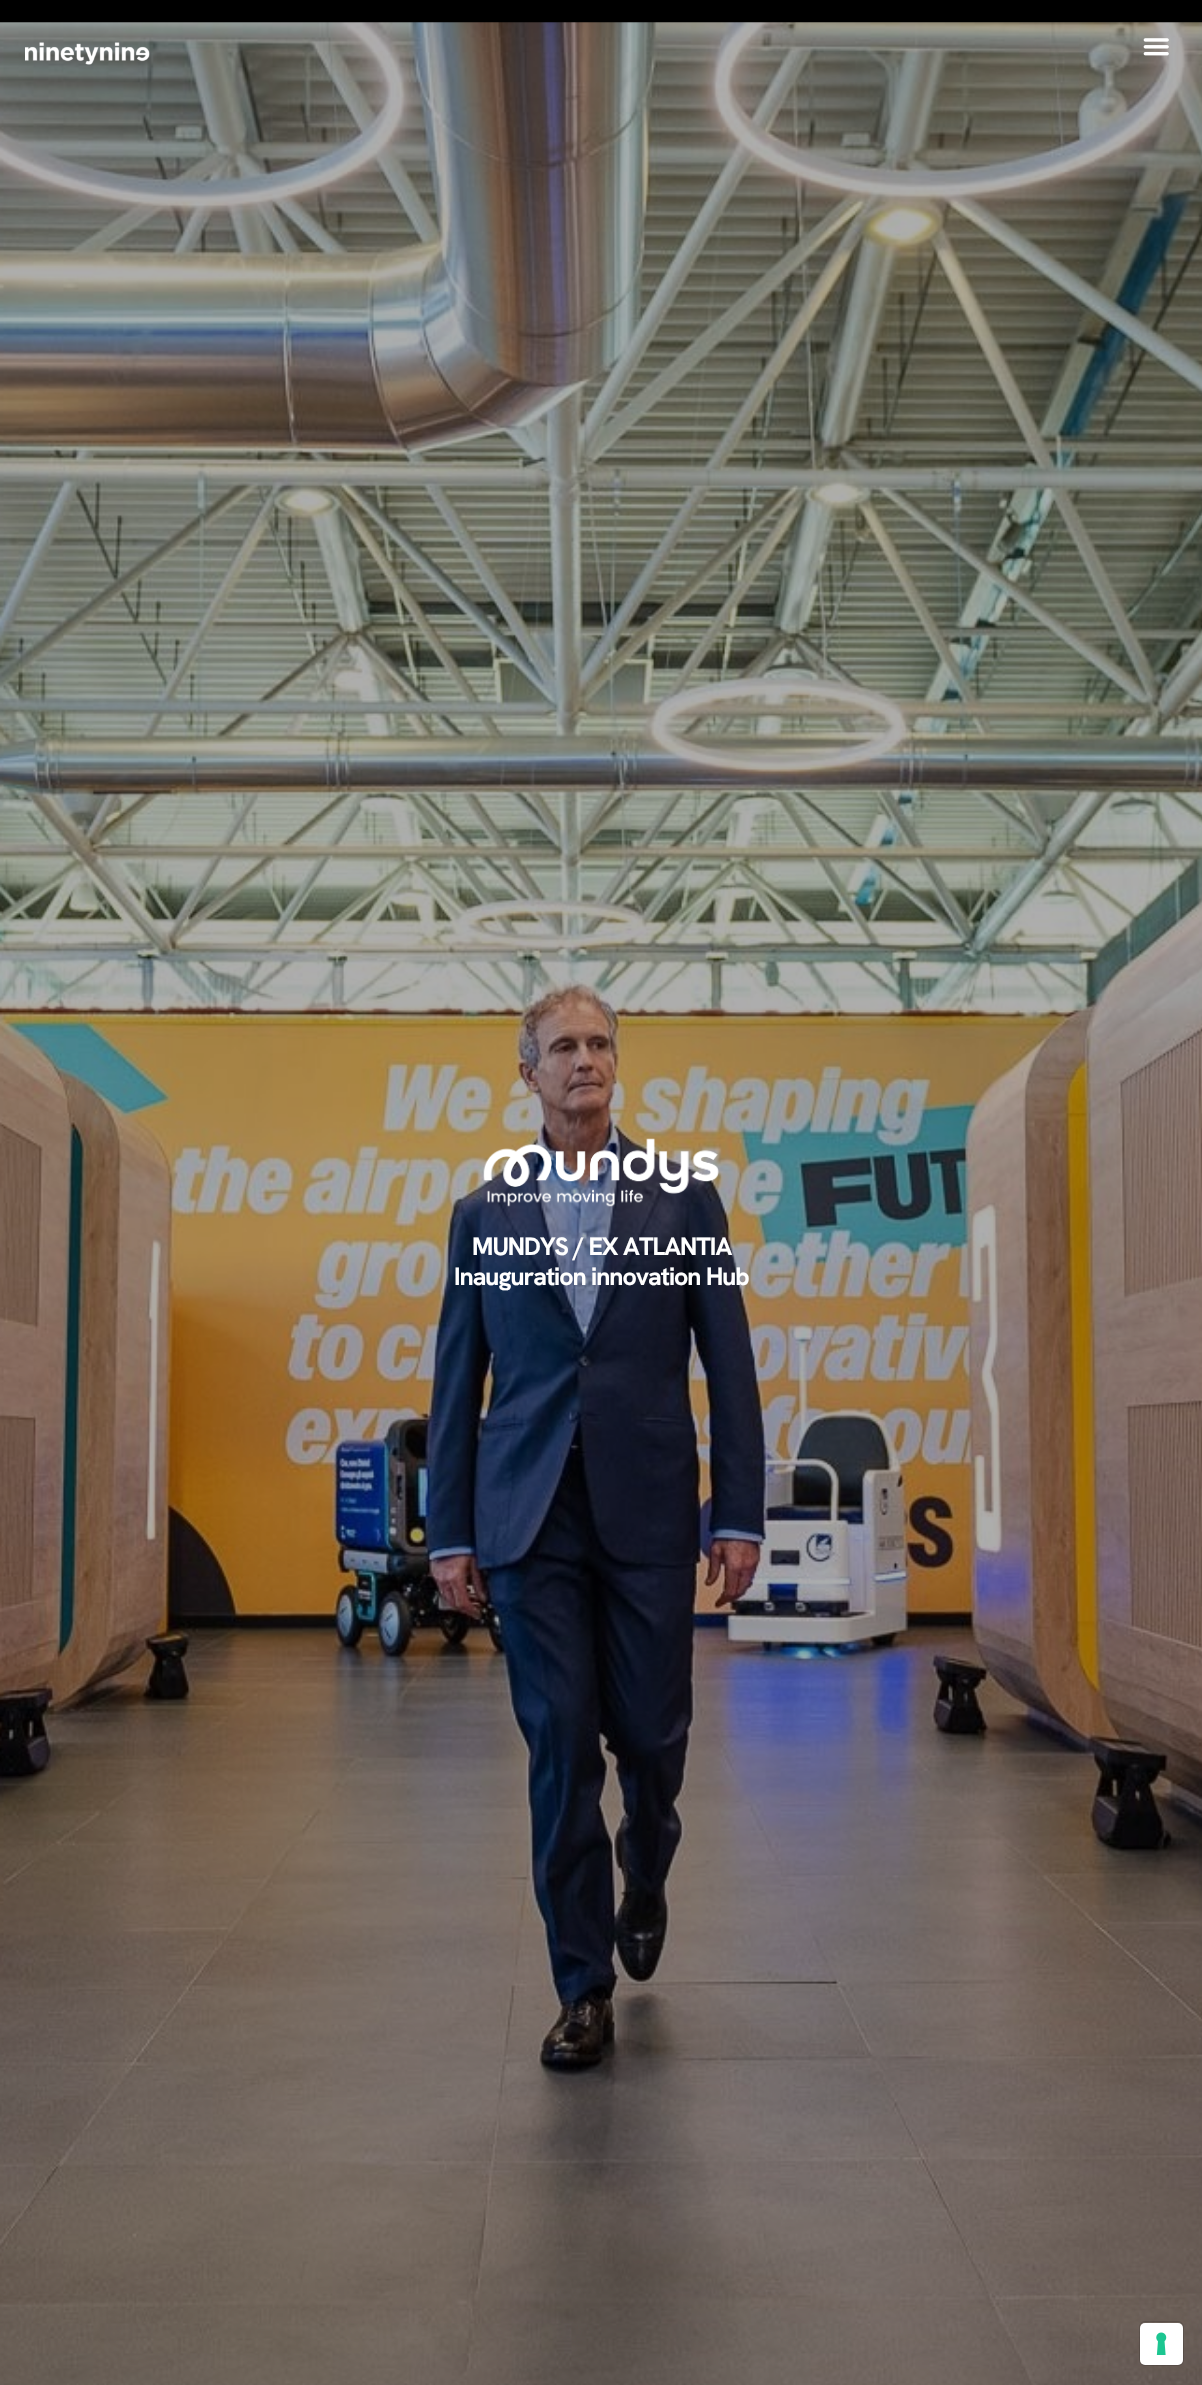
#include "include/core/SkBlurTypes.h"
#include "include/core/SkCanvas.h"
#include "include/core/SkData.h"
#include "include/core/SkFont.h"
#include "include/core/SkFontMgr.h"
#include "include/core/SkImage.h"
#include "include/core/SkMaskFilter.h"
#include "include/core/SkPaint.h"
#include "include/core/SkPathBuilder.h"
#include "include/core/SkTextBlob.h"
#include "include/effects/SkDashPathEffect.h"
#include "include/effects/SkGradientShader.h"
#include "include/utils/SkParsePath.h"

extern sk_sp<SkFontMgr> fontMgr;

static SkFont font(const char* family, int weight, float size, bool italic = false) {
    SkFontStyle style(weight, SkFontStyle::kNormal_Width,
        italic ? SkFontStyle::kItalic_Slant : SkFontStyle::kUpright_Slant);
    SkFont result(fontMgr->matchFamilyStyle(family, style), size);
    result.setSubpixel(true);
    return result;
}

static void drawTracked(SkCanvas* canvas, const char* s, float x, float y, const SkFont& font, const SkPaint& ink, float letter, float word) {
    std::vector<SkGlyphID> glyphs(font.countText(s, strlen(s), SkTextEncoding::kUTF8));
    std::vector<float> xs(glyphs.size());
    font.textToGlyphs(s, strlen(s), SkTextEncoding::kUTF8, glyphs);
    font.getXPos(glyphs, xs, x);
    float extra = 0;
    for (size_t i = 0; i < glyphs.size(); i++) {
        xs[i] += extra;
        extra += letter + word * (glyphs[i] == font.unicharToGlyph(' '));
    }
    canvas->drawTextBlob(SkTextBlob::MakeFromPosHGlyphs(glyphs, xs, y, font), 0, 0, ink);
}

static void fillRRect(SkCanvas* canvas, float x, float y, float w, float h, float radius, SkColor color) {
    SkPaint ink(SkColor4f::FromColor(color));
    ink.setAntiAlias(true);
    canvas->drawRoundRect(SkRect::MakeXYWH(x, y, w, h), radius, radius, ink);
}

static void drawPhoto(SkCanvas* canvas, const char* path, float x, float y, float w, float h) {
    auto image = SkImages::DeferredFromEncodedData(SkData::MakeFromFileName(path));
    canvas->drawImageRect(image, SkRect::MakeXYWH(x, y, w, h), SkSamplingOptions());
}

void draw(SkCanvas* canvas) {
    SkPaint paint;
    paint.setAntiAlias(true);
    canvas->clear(0xFF000000);
    drawPhoto(canvas, "assets/img3.png", 0, 22, 1202, 2363);
    drawPhoto(canvas, "assets/img1.png", 25, 42, 125, 23);
    drawPhoto(canvas, "assets/img2.png", 1143, 38, 26, 18);
    drawPhoto(canvas, "assets/img4.png", 483, 1138, 236, 69);
    SkFont font1 = font("Hanken Grotesk", 700, 25);
    paint.setColor(0xFFFFFFFF);
    drawTracked(canvas, "MUNDYS / EX ATLANTIA", 472, 1255, font1, paint, -1, 0);
    drawTracked(canvas, "Inauguration innovation Hub", 454, 1285, font1, paint, -1, 0);
    paint.setStroke(true);
    paint.setStrokeWidth(1);
    paint.setColor(0x26000000);
    canvas->drawRoundRect(SkRect::MakeXYWH(1139.5f, 2321.5f, 44, 44), 5.5f, 5.5f, paint);
    fillRRect(canvas, 1140, 2323, 43, 42, 5, 0xFFFFFFFF);
    drawPhoto(canvas, "assets/img5.png", 1156, 2332, 11, 23);
}
